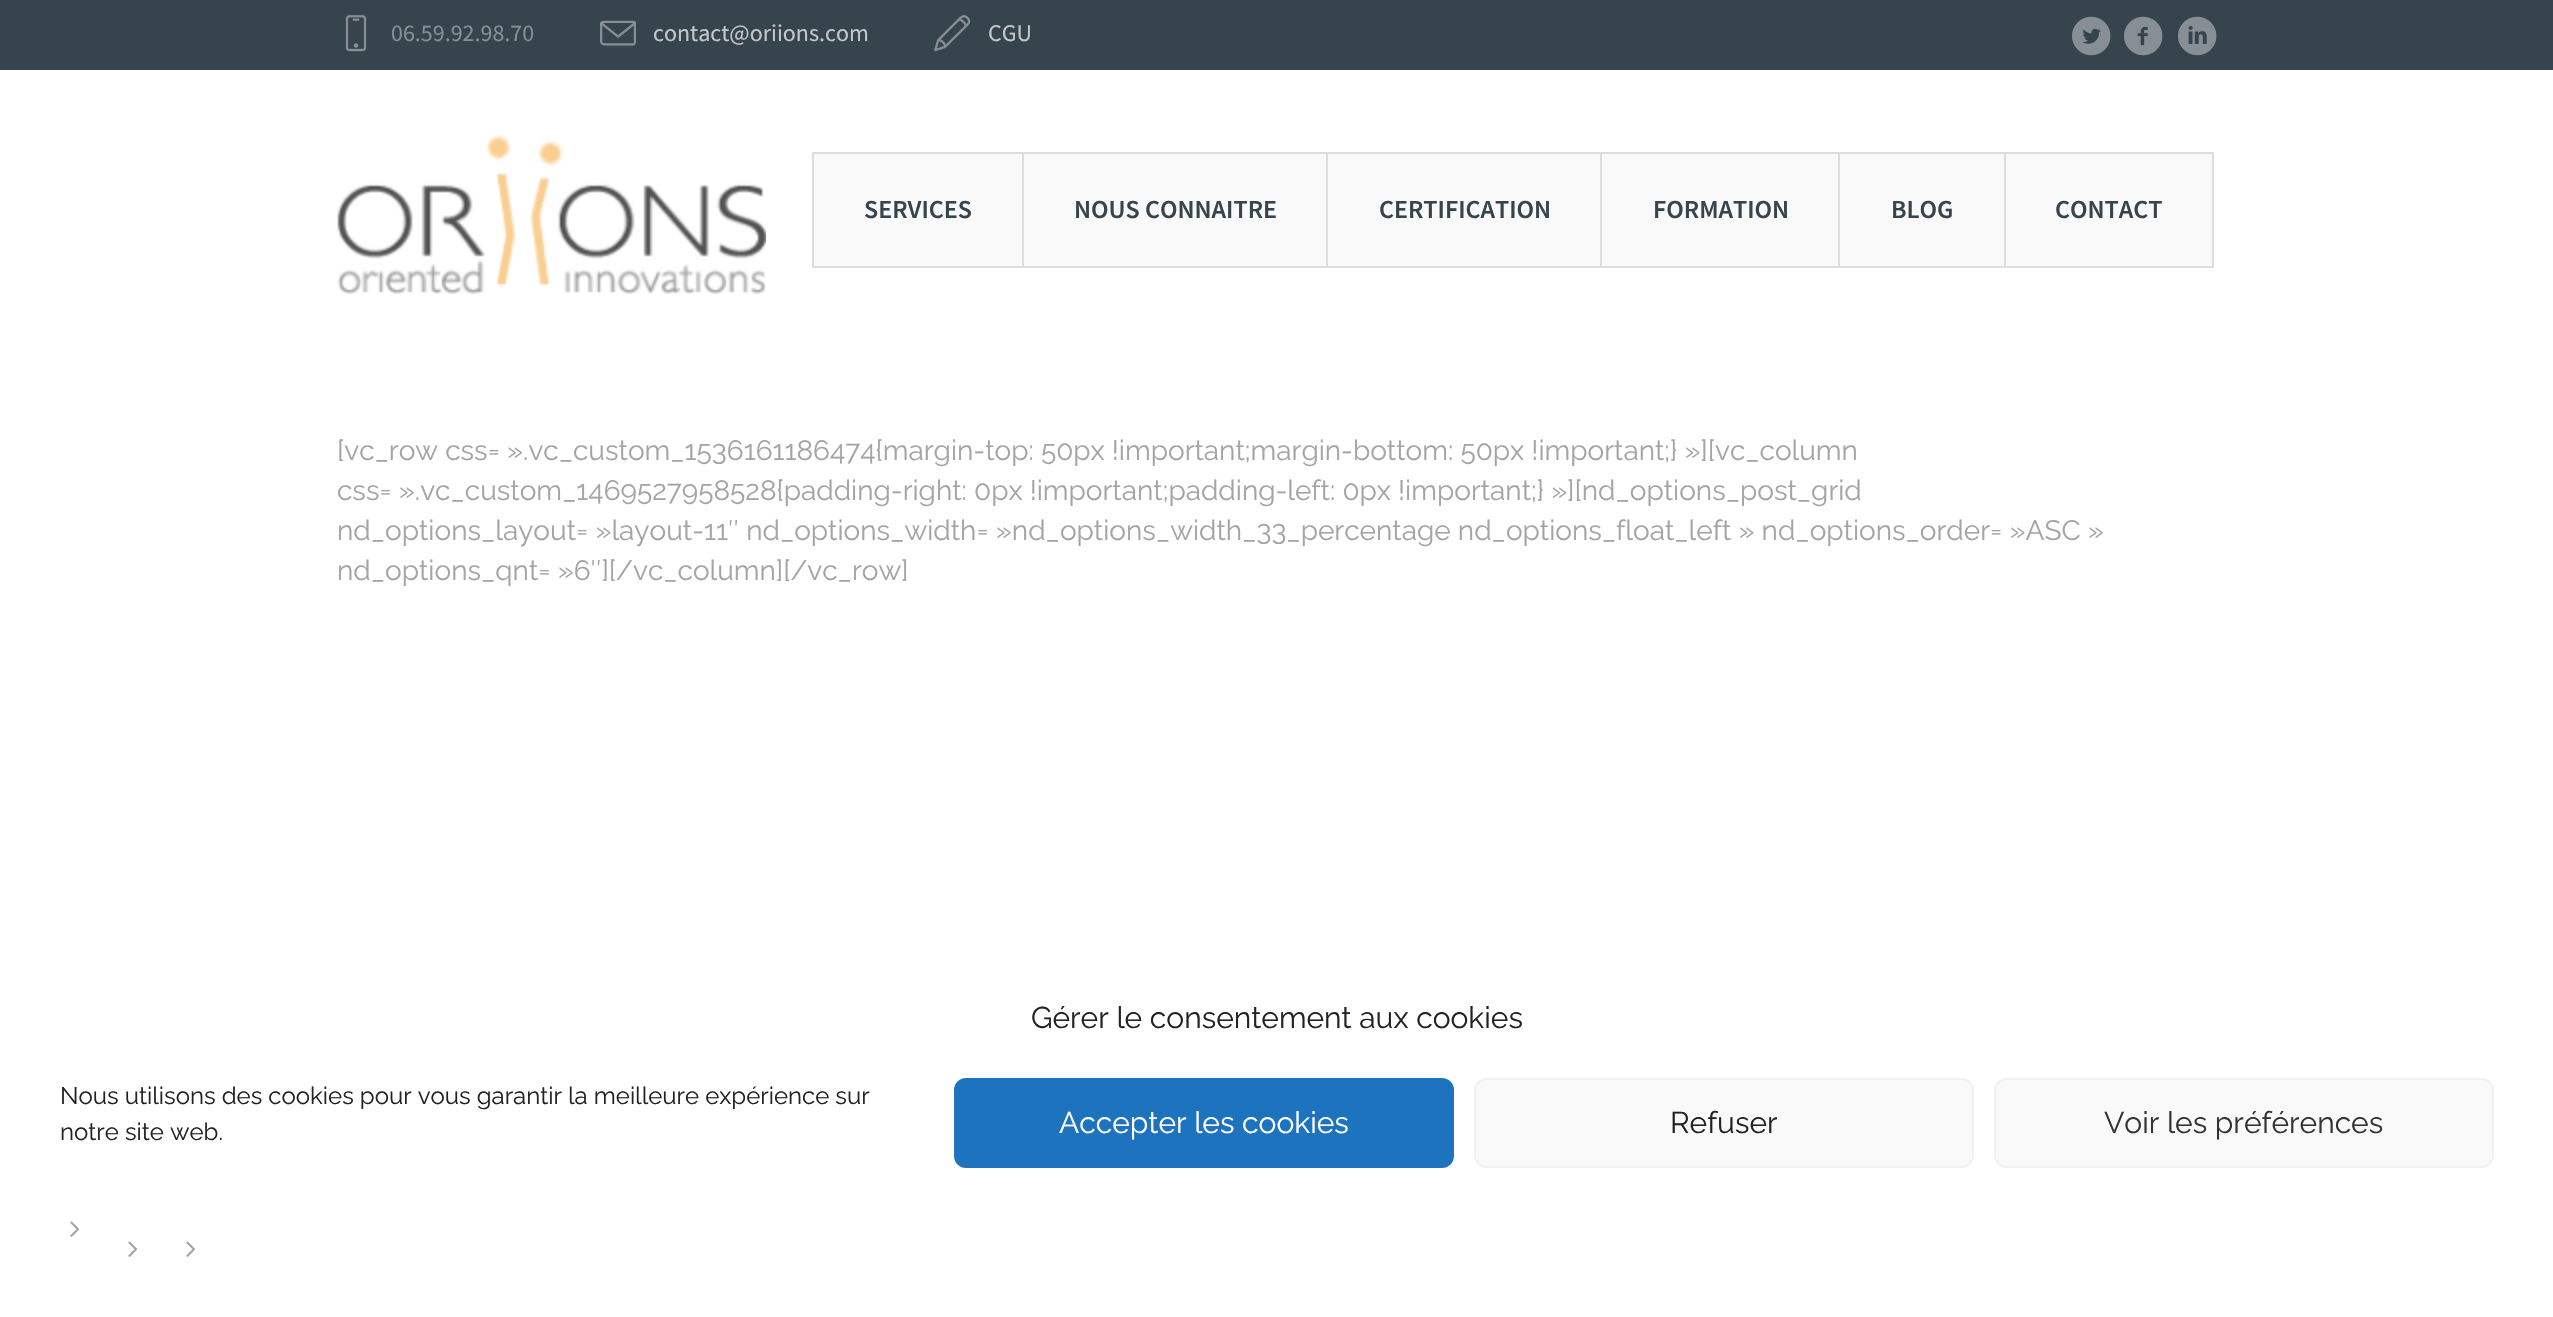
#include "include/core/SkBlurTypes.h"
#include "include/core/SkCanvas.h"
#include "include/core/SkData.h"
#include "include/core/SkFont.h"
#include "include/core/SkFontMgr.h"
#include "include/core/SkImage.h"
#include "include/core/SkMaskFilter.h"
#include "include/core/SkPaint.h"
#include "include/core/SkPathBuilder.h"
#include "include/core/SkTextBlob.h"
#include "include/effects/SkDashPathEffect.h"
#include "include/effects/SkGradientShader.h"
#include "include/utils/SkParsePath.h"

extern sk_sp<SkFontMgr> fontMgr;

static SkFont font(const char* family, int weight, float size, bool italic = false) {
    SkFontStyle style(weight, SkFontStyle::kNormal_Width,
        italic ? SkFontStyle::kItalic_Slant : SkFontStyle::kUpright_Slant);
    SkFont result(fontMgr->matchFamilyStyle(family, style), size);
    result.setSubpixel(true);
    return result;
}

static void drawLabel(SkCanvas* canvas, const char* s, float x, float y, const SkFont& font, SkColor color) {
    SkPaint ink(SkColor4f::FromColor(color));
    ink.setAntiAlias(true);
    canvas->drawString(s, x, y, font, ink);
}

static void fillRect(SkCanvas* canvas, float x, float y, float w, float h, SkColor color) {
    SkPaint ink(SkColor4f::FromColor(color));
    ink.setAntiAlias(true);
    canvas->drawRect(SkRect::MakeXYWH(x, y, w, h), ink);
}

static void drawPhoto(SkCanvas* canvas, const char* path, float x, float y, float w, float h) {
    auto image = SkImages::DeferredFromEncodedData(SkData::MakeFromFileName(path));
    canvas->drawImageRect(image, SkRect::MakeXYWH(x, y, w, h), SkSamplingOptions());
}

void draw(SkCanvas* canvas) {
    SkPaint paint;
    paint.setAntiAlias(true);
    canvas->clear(0xFFFFFFFF);
    fillRect(canvas, 0, 0, 2553, 70, 0xFF36444E);
    drawPhoto(canvas, "assets/img1.png", 345, 15, 22, 37);
    SkFont font1 = font("Source Sans Pro", 400, 24);
    drawLabel(canvas, "06.59.92.98.70", 391, 41, font1, 0xFF868F95);
    drawPhoto(canvas, "assets/img2.png", 600, 20, 36, 26);
    drawLabel(canvas, "contact@oriions.com", 653, 41, font1, 0xFFC3C7CA);
    drawPhoto(canvas, "assets/img3.png", 934, 15, 37, 37);
    drawLabel(canvas, "CGU", 988, 41, font1, 0xFFC3C7CA);
    drawPhoto(canvas, "assets/img4.png", 2072, 16, 39, 40);
    drawPhoto(canvas, "assets/img5.png", 2124, 16, 39, 40);
    drawPhoto(canvas, "assets/img6.png", 2178, 16, 39, 40);
    drawPhoto(canvas, "assets/img7.png", 337, 134, 429, 160);
    paint.setColor(0xFFF9F9F9);
    canvas->drawRect(SkRect::MakeXYWH(813, 153, 210, 114), paint);
    paint.setStroke(true);
    paint.setStrokeWidth(2);
    paint.setColor(0xFFDDDDDD);
    canvas->drawRect(SkRect::MakeXYWH(813, 153, 210, 114), paint);
    SkFont font2 = font("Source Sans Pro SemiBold", 600, 26);
    drawLabel(canvas, "SERVICES", 864, 218, font2, 0xFF36444E);
    paint.setStroke(false);
    paint.setColor(0xFFF9F9F9);
    canvas->drawRect(SkRect::MakeXYWH(1023, 153, 304, 114), paint);
    paint.setStroke(true);
    paint.setColor(0xFFDDDDDD);
    canvas->drawRect(SkRect::MakeXYWH(1023, 153, 304, 114), paint);
    drawLabel(canvas, "NOUS CONNAITRE", 1074, 218, font2, 0xFF36444E);
    paint.setStroke(false);
    paint.setColor(0xFFF9F9F9);
    canvas->drawRect(SkRect::MakeXYWH(1327, 153, 274, 114), paint);
    paint.setStroke(true);
    paint.setColor(0xFFDDDDDD);
    canvas->drawRect(SkRect::MakeXYWH(1327, 153, 274, 114), paint);
    drawLabel(canvas, "CERTIFICATION", 1379, 218, font2, 0xFF36444E);
    paint.setStroke(false);
    paint.setColor(0xFFF9F9F9);
    canvas->drawRect(SkRect::MakeXYWH(1601, 153, 238, 114), paint);
    paint.setStroke(true);
    paint.setColor(0xFFDDDDDD);
    canvas->drawRect(SkRect::MakeXYWH(1601, 153, 238, 114), paint);
    drawLabel(canvas, "FORMATION", 1653, 218, font2, 0xFF36444E);
    paint.setStroke(false);
    paint.setColor(0xFFF9F9F9);
    canvas->drawRect(SkRect::MakeXYWH(1839, 153, 166, 114), paint);
    paint.setStroke(true);
    paint.setColor(0xFFDDDDDD);
    canvas->drawRect(SkRect::MakeXYWH(1839, 153, 166, 114), paint);
    drawLabel(canvas, "BLOG", 1891, 218, font2, 0xFF36444E);
    paint.setStroke(false);
    paint.setColor(0xFFF9F9F9);
    canvas->drawRect(SkRect::MakeXYWH(2005, 153, 208, 114), paint);
    paint.setStroke(true);
    paint.setColor(0xFFDDDDDD);
    canvas->drawRect(SkRect::MakeXYWH(2005, 153, 208, 114), paint);
    drawLabel(canvas, "CONTACT", 2055, 218, font2, 0xFF36444E);
    SkFont font3 = font("Raleway", 400, 28);
    drawLabel(canvas, "[vc_row css= ».vc_custom_1536161186474{margin-top: 50px !important;margin-bottom: 50px !important;} »][vc_column", 337, 460, font3, 0xFFA4A4A4);
    drawLabel(canvas, "css= ».vc_custom_1469527958528{padding-right: 0px !important;padding-left: 0px !important;} »][nd_options_post_grid", 337, 500, font3, 0xFFA4A4A4);
    drawLabel(canvas, "nd_options_layout= »layout-11″ nd_options_width= »nd_options_width_33_percentage nd_options_float_left » nd_options_order= »ASC »", 337, 540, font3, 0xFFA4A4A4);
    drawLabel(canvas, "nd_options_qnt= »6″][/vc_column][/vc_row]", 337, 580, font3, 0xFFA4A4A4);
    SkFont font4 = font("Raleway", 400, 30);
    drawLabel(canvas, "Gérer le consentement aux cookies", 1031, 1028, font4, 0xFF222222);
    SkFont font5 = font("Raleway", 400, 24);
    drawLabel(canvas, "Nous utilisons des cookies pour vous garantir la meilleure expérience sur", 60, 1104, font5, 0xFF222222);
    drawLabel(canvas, "notre site web.", 60, 1140, font5, 0xFF222222);
    paint.setStroke(false);
    paint.setColor(0xFF1E73BE);
    canvas->drawRoundRect(SkRect::MakeXYWH(955, 1079, 498, 88), 11, 11, paint);
    paint.setStroke(true);
    canvas->drawRoundRect(SkRect::MakeXYWH(955, 1079, 498, 88), 11, 11, paint);
    drawLabel(canvas, "Accepter les cookies", 1059, 1133, font4, 0xFFFFFFFF);
    paint.setStroke(false);
    paint.setColor(0xFFF9F9F9);
    canvas->drawRoundRect(SkRect::MakeXYWH(1475, 1079, 498, 88), 11, 11, paint);
    paint.setStroke(true);
    paint.setColor(0xFFF2F2F2);
    canvas->drawRoundRect(SkRect::MakeXYWH(1475, 1079, 498, 88), 11, 11, paint);
    drawLabel(canvas, "Refuser", 1670, 1133, font4, 0xFF222222);
    paint.setStroke(false);
    paint.setColor(0xFFF9F9F9);
    canvas->drawRoundRect(SkRect::MakeXYWH(1995, 1079, 498, 88), 11, 11, paint);
    paint.setStroke(true);
    paint.setColor(0xFFF2F2F2);
    canvas->drawRoundRect(SkRect::MakeXYWH(1995, 1079, 498, 88), 11, 11, paint);
    drawLabel(canvas, "Voir les préférences", 2104, 1133, font4, 0xFF333333);
    drawPhoto(canvas, "assets/img8.png", 70, 1221, 10, 16);
    drawPhoto(canvas, "assets/img8.png", 128, 1241, 10, 16);
    drawPhoto(canvas, "assets/img8.png", 186, 1241, 10, 16);
}
